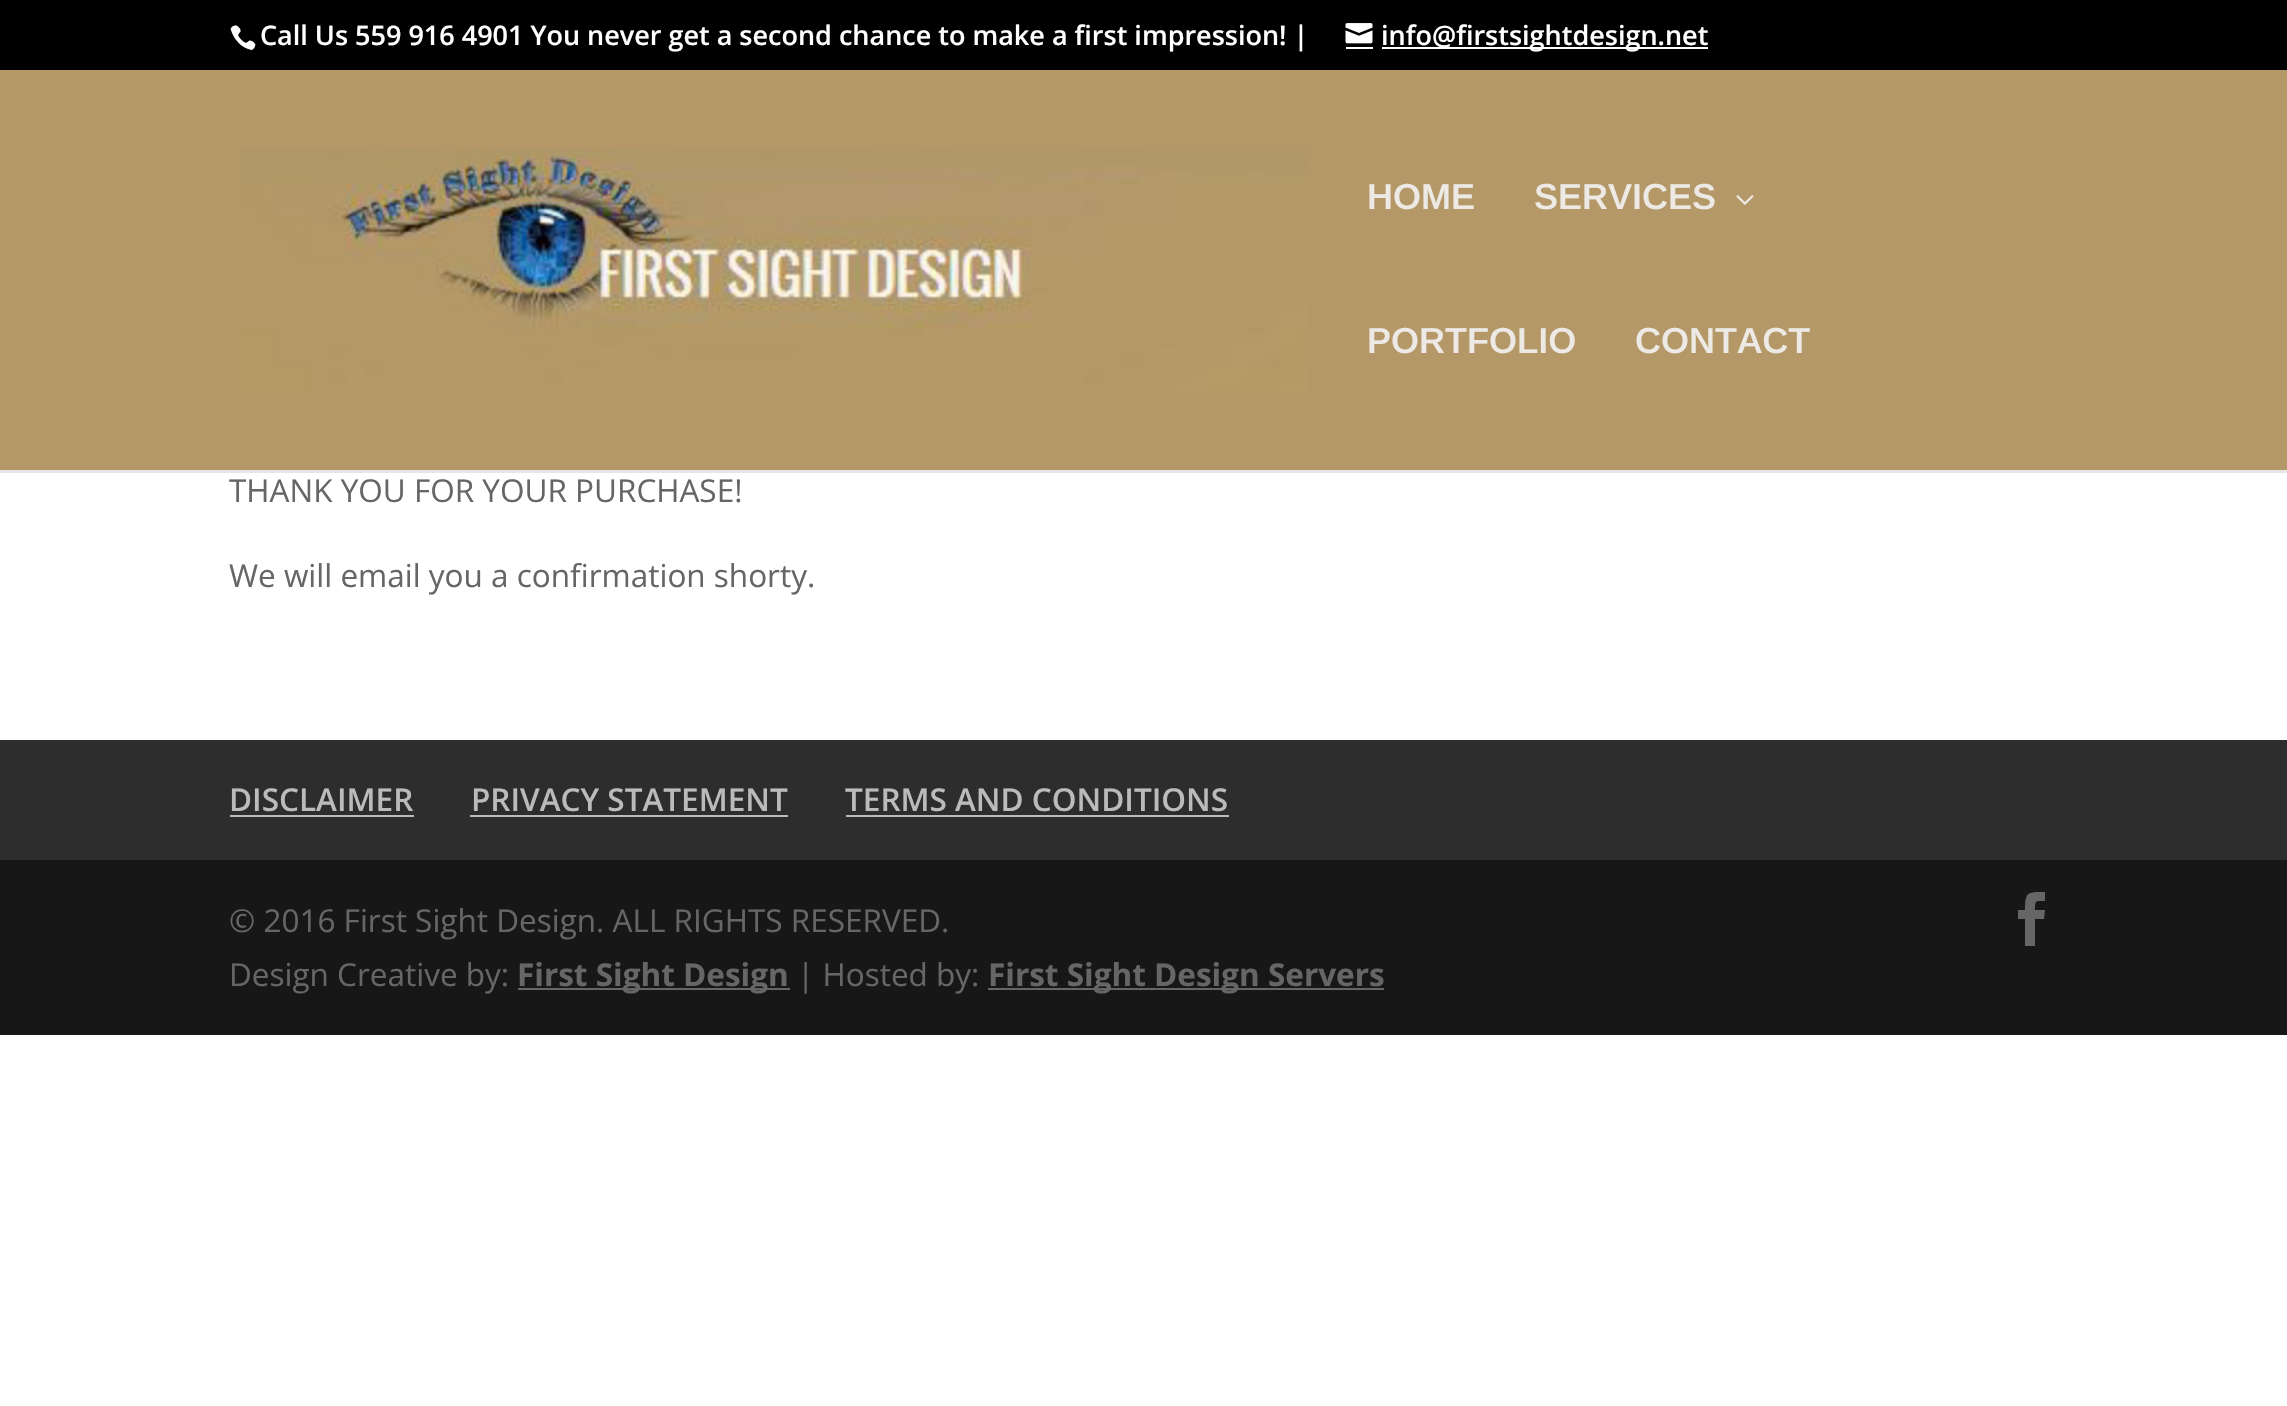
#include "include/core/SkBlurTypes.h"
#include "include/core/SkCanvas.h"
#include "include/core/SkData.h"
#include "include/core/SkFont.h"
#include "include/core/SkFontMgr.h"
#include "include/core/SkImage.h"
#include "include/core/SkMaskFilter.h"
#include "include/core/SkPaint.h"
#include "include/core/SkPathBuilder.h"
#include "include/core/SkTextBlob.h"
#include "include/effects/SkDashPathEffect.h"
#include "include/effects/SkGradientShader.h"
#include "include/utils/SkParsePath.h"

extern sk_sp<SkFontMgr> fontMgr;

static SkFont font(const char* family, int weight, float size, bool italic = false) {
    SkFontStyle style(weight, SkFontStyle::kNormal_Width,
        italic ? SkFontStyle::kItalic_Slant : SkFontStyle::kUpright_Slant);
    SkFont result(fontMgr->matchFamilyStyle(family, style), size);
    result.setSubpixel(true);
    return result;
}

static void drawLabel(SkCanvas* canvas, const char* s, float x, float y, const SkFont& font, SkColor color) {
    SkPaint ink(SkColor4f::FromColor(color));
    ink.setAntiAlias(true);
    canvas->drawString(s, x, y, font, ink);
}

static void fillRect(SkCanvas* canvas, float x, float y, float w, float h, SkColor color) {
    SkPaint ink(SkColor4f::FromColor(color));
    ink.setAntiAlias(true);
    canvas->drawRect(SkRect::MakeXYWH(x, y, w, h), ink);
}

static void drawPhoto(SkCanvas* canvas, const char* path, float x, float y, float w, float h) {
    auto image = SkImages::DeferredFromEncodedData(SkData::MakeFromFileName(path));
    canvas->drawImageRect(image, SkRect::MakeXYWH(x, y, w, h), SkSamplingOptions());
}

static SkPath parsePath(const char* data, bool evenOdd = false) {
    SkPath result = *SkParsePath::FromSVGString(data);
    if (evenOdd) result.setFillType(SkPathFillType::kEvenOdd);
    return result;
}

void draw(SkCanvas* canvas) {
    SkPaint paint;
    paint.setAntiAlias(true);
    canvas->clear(0xFFFFFFFF);
    fillRect(canvas, 0, 0, 2287, 70, 0xFF000000);
    drawPhoto(canvas, "assets/img1.png", 230, 25, 26, 26);
    SkFont font1 = font("Open Sans", 600, 27);
    drawLabel(canvas, "Call Us 559 916 4901 You never get a second chance to make a first impression! |", 260, 45, font1, 0xFFFFFFFF);
    drawPhoto(canvas, "assets/img2.png", 1345, 23, 28, 21);
    fillRect(canvas, 1382, 47, 326, 2, 0xFFFFFFFF);
    drawLabel(canvas, "info@firstsightdesign.net", 1381, 45, font1, 0xFFFFFFFF);
    fillRect(canvas, 1346, 47, 27, 2, 0xFFFFFFFF);
    fillRect(canvas, 0, 470, 2287, 3, 0xFFE6E6E6);
    fillRect(canvas, 0, 70, 2287, 400, 0xFFB49868);
    drawPhoto(canvas, "assets/img3.png", 239, 149, 1070, 243);
    SkFont font2 = font("Arimo", 600, 36);
    drawLabel(canvas, "HOME", 1367, 209, font2, 0xFFEDEAE5);
    drawLabel(canvas, "SERVICES", 1534, 209, font2, 0xFFEDEAE5);
    drawPhoto(canvas, "assets/img4.png", 1736, 195, 18, 10);
    drawLabel(canvas, "PORTFOLIO", 1367, 353, font2, 0xFFEDEAE5);
    drawLabel(canvas, "CONTACT", 1635, 353, font2, 0xFFEDEAE5);
    SkFont font3 = font("Open Sans", 400, 31.5f);
    drawLabel(canvas, "THANK YOU FOR YOUR PURCHASE!", 229, 502, font3, 0xFF666666);
    drawLabel(canvas, "We will email you a confirmation shorty.", 229, 587, font3, 0xFF666666);
    fillRect(canvas, 0, 740, 2287, 120, 0xFF2D2D2D);
    SkFont font4 = font("Open Sans", 600, 31.5f);
    drawLabel(canvas, "DISCLAIMER", 229, 811, font4, 0xFFBBBBBB);
    fillRect(canvas, 230, 815, 184, 2, 0xFFBBBBBB);
    drawLabel(canvas, "PRIVACY STATEMENT", 471, 811, font4, 0xFFBBBBBB);
    fillRect(canvas, 470, 815, 318, 2, 0xFFBBBBBB);
    drawLabel(canvas, "TERMS AND CONDITIONS", 845, 811, font4, 0xFFBBBBBB);
    fillRect(canvas, 846, 815, 383, 2, 0xFFBBBBBB);
    fillRect(canvas, 0, 860, 2287, 175, 0xFF171717);
    drawLabel(canvas, "© 2016 First Sight Design. ALL RIGHTS RESERVED.", 229, 932, font3, 0xFF666666);
    drawLabel(canvas, "Design Creative by:", 229, 986, font3, 0xFF666666);
    fillRect(canvas, 518, 988, 272, 2, 0xFF666666);
    SkFont font5 = font("Open Sans", 700, 31.5f);
    drawLabel(canvas, "First Sight Design", 517, 986, font5, 0xFF666666);
    drawLabel(canvas, "| Hosted by:", 797, 986, font3, 0xFF666666);
    fillRect(canvas, 988, 988, 396, 2, 0xFF666666);
    drawLabel(canvas, "First Sight Design Servers", 988, 986, font5, 0xFF666666);
    paint.setColor(0xFF666666);
    canvas->drawPath(parsePath("M2025 946H2035V919H2044L2045 910H2035C2035 900 2035 901 2045 901V892C2028 892 2025 891 2025 910H2018V919H2025Z"), paint);
}
